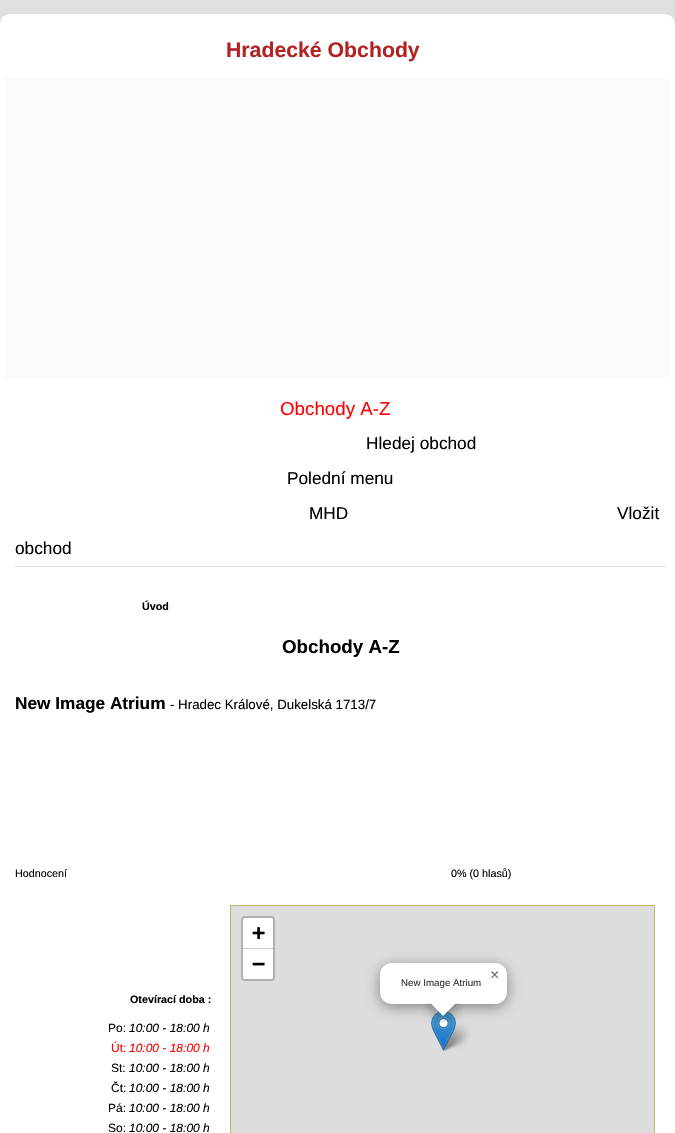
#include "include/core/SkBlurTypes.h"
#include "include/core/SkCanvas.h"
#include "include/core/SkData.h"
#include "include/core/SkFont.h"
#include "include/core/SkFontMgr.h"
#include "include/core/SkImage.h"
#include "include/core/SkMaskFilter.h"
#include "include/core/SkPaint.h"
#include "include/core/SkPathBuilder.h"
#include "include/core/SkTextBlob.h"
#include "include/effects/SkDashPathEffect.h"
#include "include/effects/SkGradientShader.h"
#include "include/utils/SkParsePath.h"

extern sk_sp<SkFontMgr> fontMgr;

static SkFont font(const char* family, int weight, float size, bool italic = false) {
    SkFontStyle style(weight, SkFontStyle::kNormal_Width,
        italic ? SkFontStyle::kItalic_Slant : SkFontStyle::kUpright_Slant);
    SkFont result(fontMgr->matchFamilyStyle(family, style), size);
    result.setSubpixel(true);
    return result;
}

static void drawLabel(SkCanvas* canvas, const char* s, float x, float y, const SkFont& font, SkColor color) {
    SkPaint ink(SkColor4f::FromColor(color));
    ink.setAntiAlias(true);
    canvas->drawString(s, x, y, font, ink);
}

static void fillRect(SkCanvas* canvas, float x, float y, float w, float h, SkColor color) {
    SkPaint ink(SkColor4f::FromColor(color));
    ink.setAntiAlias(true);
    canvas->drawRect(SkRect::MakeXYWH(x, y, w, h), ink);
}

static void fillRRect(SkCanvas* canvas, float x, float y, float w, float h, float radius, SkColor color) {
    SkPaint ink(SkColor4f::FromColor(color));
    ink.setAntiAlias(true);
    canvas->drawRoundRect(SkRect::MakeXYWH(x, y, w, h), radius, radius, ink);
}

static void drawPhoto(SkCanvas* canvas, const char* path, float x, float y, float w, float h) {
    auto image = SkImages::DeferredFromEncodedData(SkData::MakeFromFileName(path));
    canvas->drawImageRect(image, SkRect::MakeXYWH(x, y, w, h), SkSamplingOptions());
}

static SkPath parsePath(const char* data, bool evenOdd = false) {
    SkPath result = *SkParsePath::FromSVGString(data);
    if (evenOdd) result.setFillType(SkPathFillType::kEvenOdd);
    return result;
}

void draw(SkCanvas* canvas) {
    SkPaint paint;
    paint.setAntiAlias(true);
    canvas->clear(0xFFE0E0E0);
    fillRRect(canvas, 0, 14, 675, 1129, 10, 0xFFFFFFFF);
    SkFont font1 = font("Liberation Sans", 700, 21.25f);
    drawLabel(canvas, "Hradecké Obchody", 226, 57, font1, 0xFFB22222);
    fillRect(canvas, 5, 78, 665, 300, 0xFFFAFAFA);
    fillRect(canvas, 15, 566, 651, 1, 0xFFDCDCDC);
    SkFont font2 = font("Liberation Sans", 400, 18.75f);
    drawLabel(canvas, "Obchody A-Z", 280, 415, font2, 0xFFFF0000);
    SkFont font3 = font("Liberation Sans", 400, 17.25f);
    drawLabel(canvas, "Hledej obchod", 366, 449, font3, 0xFF000000);
    drawLabel(canvas, "Polední menu", 287, 484, font3, 0xFF000000);
    drawLabel(canvas, "MHD", 309, 519, font3, 0xFF000000);
    drawLabel(canvas, "Vložit", 617, 519, font3, 0xFF000000);
    drawLabel(canvas, "obchod", 15, 554, font3, 0xFF000000);
    SkFont font4 = font("Liberation Sans", 700, 10.75f);
    drawLabel(canvas, "Úvod", 142, 610, font4, 0xFF000000);
    SkFont font5 = font("Liberation Sans", 700, 18.75f);
    drawLabel(canvas, "Obchody A-Z", 282, 653, font5, 0xFF000000);
    SkFont font6 = font("Liberation Sans", 700, 17.25f);
    drawLabel(canvas, "New Image Atrium", 15, 709, font6, 0xFF000000);
    SkFont font7 = font("Liberation Sans", 400, 13.3f);
    drawLabel(canvas, "- Hradec Králové, Dukelská 1713/7", 170, 709, font7, 0xFF000000);
    SkFont font8 = font("Liberation Sans", 400, 10.75f);
    drawLabel(canvas, "Hodnocení", 15, 877, font8, 0xFF000000);
    drawLabel(canvas, "0% (0 hlasů)", 451, 877, font8, 0xFF000000);
    paint.setColor(0xFFDDDDDD);
    canvas->drawRect(SkRect::MakeXYWH(230.5f, 905.5f, 424, 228), paint);
    paint.setStroke(true);
    paint.setStrokeWidth(1);
    paint.setColor(0xFFBDB76B);
    canvas->drawRect(SkRect::MakeXYWH(230.5f, 905.5f, 424, 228), paint);
    paint.setStrokeWidth(2);
    paint.setColor(0xFFB1B1B1);
    canvas->drawRoundRect(SkRect::MakeXYWH(242, 917, 32, 63), 3, 3, paint);
    paint.setStroke(false);
    paint.setColor(0xFFFFFFFF);
    canvas->drawPath(parsePath("M245 918H271C272 918 273 919 273 920V949H243V920C243 919 244 918 245 918Z"), paint);
    fillRect(canvas, 243, 948, 30, 1, 0xFFCCCCCC);
    SkFont font9 = font("DejaVu Sans Mono", 700, 22);
    drawLabel(canvas, "+", 252, 940, font9, 0xFF000000);
    canvas->drawPath(parsePath("M243 949H273V977C273 978 272 979 271 979H245C244 979 243 978 243 977Z"), paint);
    drawLabel(canvas, "−", 252, 971, font9, 0xFF000000);
    drawPhoto(canvas, "assets/img2.png", 441, 1023, 29, 28);
    drawPhoto(canvas, "assets/img1.png", 431, 1011, 25, 40);
    paint.setColor(0x66000000);
    paint.setMaskFilter(SkMaskFilter::MakeBlur(kNormal_SkBlurStyle, 7));
    canvas->drawRoundRect(SkRect::MakeXYWH(380, 966, 127, 41), 12, 12, paint);
    paint.setMaskFilter(nullptr);
    fillRRect(canvas, 380, 963, 127, 41, 12, 0xFFFFFFFF);
    canvas->save();
    canvas->clipRect(SkRect::MakeXYWH(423, 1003, 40, 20));
    paint.setMaskFilter(SkMaskFilter::MakeBlur(kNormal_SkBlurStyle, 7));
    canvas->drawRect(SkRect::MakeXYWH(434, 996, 19, 19), paint);
    paint.setMaskFilter(nullptr);
    canvas->restore();
    canvas->save();
    canvas->clipRect(SkRect::MakeXYWH(423, 1003, 40, 20));
    paint.setColor(0xFFFFFFFF);
    canvas->drawPath(parsePath("M443 989L456.5 1002.5L443 1016L430 1002.5Z"), paint);
    canvas->restore();
    SkFont font10 = font("Liberation Sans", 400, 16);
    drawLabel(canvas, "×", 490, 980, font10, 0xFF757575);
    SkFont font11 = font("Liberation Sans", 400, 9.75f);
    drawLabel(canvas, "New Image Atrium", 401, 986, font11, 0xFF333333);
    drawLabel(canvas, "Otevírací doba :", 130, 1003, font4, 0xFF000000);
    SkFont font12 = font("Liberation Sans", 400, 12);
    drawLabel(canvas, "Po:", 108, 1032, font12, 0xFF000000);
    SkFont font13 = font("Liberation Sans", 400, 12, true);
    drawLabel(canvas, "10:00 - 18:00 h", 129, 1032, font13, 0xFF000000);
    drawLabel(canvas, "Út:", 111, 1052, font12, 0xFFFF0000);
    drawLabel(canvas, "10:00 - 18:00 h", 129, 1052, font13, 0xFFFF0000);
    drawLabel(canvas, "St:", 111, 1072, font12, 0xFF000000);
    drawLabel(canvas, "10:00 - 18:00 h", 129, 1072, font13, 0xFF000000);
    drawLabel(canvas, "Čt:", 111, 1092, font12, 0xFF000000);
    drawLabel(canvas, "10:00 - 18:00 h", 129, 1092, font13, 0xFF000000);
    drawLabel(canvas, "Pá:", 108, 1112, font12, 0xFF000000);
    drawLabel(canvas, "10:00 - 18:00 h", 129, 1112, font13, 0xFF000000);
    drawLabel(canvas, "So:", 108, 1132, font12, 0xFF000000);
    drawLabel(canvas, "10:00 - 18:00 h", 129, 1132, font13, 0xFF000000);
}
